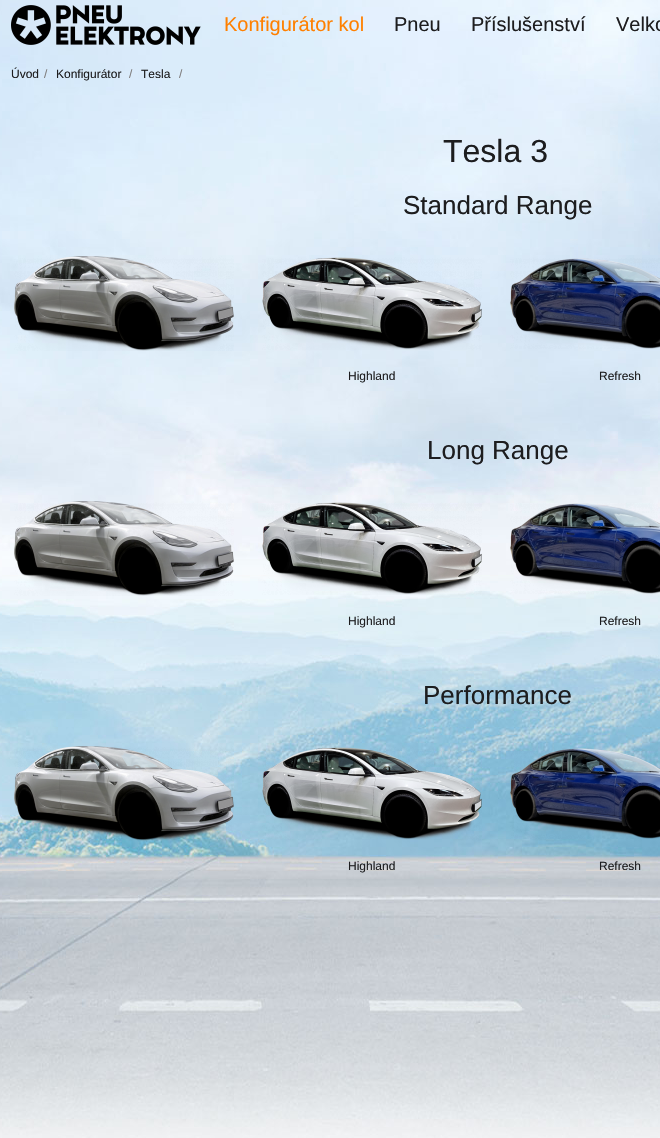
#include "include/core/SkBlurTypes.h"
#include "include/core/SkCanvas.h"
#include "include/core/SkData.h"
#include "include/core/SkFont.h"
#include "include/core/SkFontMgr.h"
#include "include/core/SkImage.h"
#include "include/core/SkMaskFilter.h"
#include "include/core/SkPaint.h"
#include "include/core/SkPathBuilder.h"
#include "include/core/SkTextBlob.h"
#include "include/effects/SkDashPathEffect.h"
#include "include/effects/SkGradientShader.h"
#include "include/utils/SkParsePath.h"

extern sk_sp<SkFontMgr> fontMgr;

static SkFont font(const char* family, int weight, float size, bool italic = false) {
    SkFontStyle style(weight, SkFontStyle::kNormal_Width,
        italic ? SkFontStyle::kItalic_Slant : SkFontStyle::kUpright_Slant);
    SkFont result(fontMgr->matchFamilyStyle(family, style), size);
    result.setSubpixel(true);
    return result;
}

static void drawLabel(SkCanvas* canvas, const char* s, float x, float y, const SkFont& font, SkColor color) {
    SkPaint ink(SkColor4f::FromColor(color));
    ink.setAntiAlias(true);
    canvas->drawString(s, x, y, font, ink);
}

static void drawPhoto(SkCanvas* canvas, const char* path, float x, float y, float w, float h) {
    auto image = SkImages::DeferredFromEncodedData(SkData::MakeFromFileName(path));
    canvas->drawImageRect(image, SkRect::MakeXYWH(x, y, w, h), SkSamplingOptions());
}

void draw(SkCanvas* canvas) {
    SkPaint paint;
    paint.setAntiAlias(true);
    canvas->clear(0xFFFFFFFF);
    drawPhoto(canvas, "assets/img2.png", 0, 0, 660, 1138);
    drawPhoto(canvas, "assets/img1.png", 11, 5, 190, 40);
    SkFont font1 = font("Liberation Sans", 400, 20);
    drawLabel(canvas, "Konfigurátor kol", 224, 31, font1, 0xFFFF8000);
    drawLabel(canvas, "Pneu", 394, 31, font1, 0xFF1D1D1F);
    drawLabel(canvas, "Příslušenství", 471, 31, font1, 0xFF1D1D1F);
    drawLabel(canvas, "Velko", 616, 31, font1, 0xFF1D1D1F);
    SkFont font2 = font("Liberation Sans", 400, 12);
    drawLabel(canvas, "Úvod", 11, 78, font2, 0xFF1D1D1F);
    drawLabel(canvas, "/", 44, 78, font2, 0xFF7F7D7D);
    drawLabel(canvas, "Konfigurátor", 56, 78, font2, 0xFF1D1D1F);
    drawLabel(canvas, "/", 129, 78, font2, 0xFF7F7D7D);
    drawLabel(canvas, "Tesla", 141, 78, font2, 0xFF1D1D1F);
    drawLabel(canvas, "/", 179, 78, font2, 0xFF7F7D7D);
    SkFont font3 = font("Liberation Sans", 400, 32);
    drawLabel(canvas, "Tesla 3", 443, 162, font3, 0xFF1D1D1F);
    SkFont font4 = font("Liberation Sans", 400, 26);
    drawLabel(canvas, "Standard Range", 403, 214, font4, 0xFF1D1D1F);
    drawPhoto(canvas, "assets/img3.png", 14, 256, 220, 95);
    drawPhoto(canvas, "assets/img4.png", 262, 257, 220, 93);
    drawLabel(canvas, "Highland", 348, 380, font2, 0xFF1D1D1F);
    drawPhoto(canvas, "assets/img5.png", 510, 258, 150, 91);
    drawLabel(canvas, "Refresh", 599, 380, font2, 0xFF1D1D1F);
    drawLabel(canvas, "Long Range", 427, 459, font4, 0xFF1D1D1F);
    drawPhoto(canvas, "assets/img6.png", 14, 501, 220, 95);
    drawPhoto(canvas, "assets/img7.png", 262, 502, 220, 93);
    drawLabel(canvas, "Highland", 348, 625, font2, 0xFF1D1D1F);
    drawPhoto(canvas, "assets/img8.png", 510, 503, 150, 91);
    drawLabel(canvas, "Refresh", 599, 625, font2, 0xFF1D1D1F);
    drawLabel(canvas, "Performance", 423, 704, font4, 0xFF1D1D1F);
    drawPhoto(canvas, "assets/img9.png", 14, 746, 220, 95);
    drawPhoto(canvas, "assets/img10.png", 262, 747, 220, 93);
    drawLabel(canvas, "Highland", 348, 870, font2, 0xFF1D1D1F);
    drawPhoto(canvas, "assets/img11.png", 510, 748, 150, 91);
    drawLabel(canvas, "Refresh", 599, 870, font2, 0xFF1D1D1F);
}
